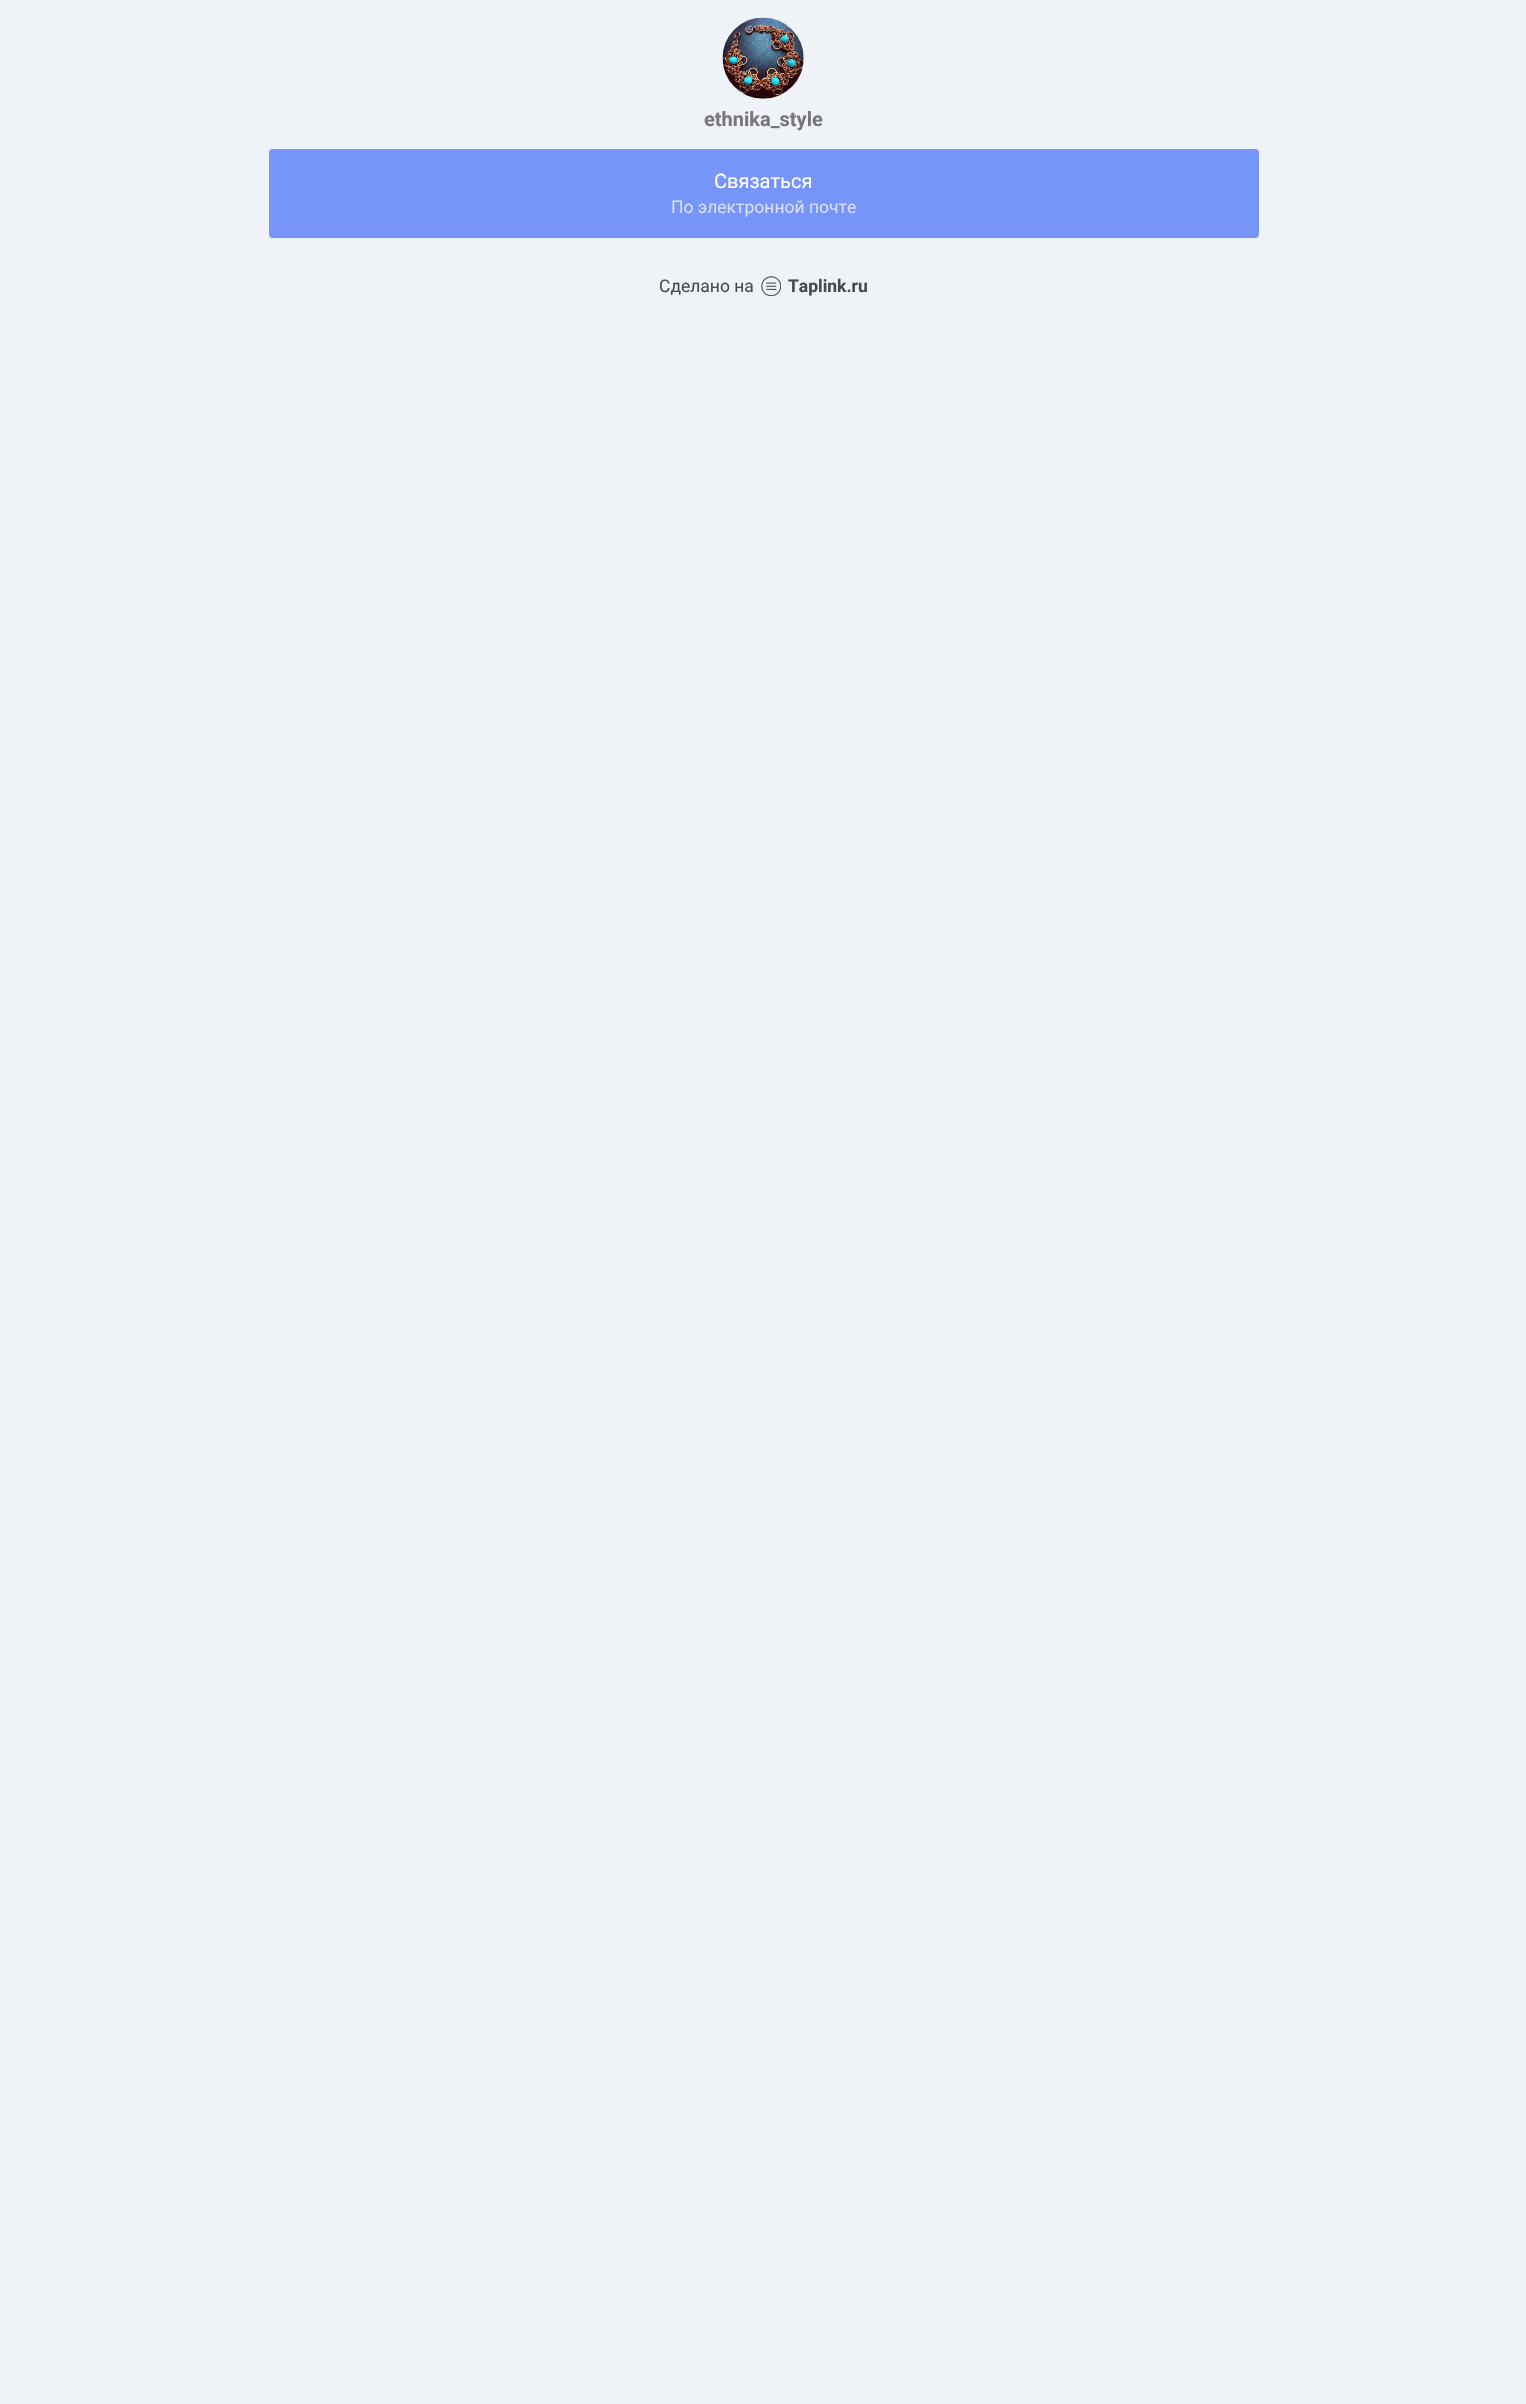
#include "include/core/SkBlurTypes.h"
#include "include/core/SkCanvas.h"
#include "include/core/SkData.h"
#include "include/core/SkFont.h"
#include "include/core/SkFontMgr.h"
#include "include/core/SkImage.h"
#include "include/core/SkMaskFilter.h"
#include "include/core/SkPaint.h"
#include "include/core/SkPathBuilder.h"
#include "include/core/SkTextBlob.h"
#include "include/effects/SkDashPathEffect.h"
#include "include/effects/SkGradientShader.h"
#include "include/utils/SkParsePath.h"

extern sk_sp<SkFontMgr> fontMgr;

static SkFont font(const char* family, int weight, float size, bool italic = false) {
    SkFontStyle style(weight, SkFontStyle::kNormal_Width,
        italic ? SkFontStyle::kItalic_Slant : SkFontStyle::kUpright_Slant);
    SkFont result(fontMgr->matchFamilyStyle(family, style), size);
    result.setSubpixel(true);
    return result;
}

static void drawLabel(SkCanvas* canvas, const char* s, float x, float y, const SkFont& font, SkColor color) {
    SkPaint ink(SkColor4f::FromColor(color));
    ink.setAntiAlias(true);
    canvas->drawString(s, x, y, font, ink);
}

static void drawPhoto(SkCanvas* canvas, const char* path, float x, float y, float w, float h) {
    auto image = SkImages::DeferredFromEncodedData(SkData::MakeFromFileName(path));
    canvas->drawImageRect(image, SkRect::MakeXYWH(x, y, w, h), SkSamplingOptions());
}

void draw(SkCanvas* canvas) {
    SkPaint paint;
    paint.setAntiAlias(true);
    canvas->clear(0xFFEFF2F7);
    drawPhoto(canvas, "assets/img1.png", 722, 17, 82, 82);
    SkFont font1 = font("Roboto", 700, 20);
    drawLabel(canvas, "ethnika_style", 704, 126, font1, 0xFF777777);
    paint.setColor(0xFF7795F8);
    canvas->drawRoundRect(SkRect::MakeXYWH(270.5f, 150.5f, 987, 86), 2.5f, 2.5f, paint);
    paint.setStroke(true);
    paint.setStrokeWidth(3);
    canvas->drawRoundRect(SkRect::MakeXYWH(270.5f, 150.5f, 987, 86), 2.5f, 2.5f, paint);
    SkFont font2 = font("Roboto", 400, 20);
    drawLabel(canvas, "Связаться", 714, 188, font2, 0xFFFFFFFF);
    SkFont font3 = font("Roboto", 400, 17.5f);
    drawLabel(canvas, "По электронной почте", 671, 213, font3, 0xFFD6DFFD);
    drawLabel(canvas, "Сделано на", 659, 292, font3, 0xFF48494A);
    drawPhoto(canvas, "assets/img2.png", 761, 276, 20, 20);
    SkFont font4 = font("Roboto", 700, 17.5f);
    drawLabel(canvas, "Taplink.ru", 788, 292, font4, 0xFF48494A);
}
